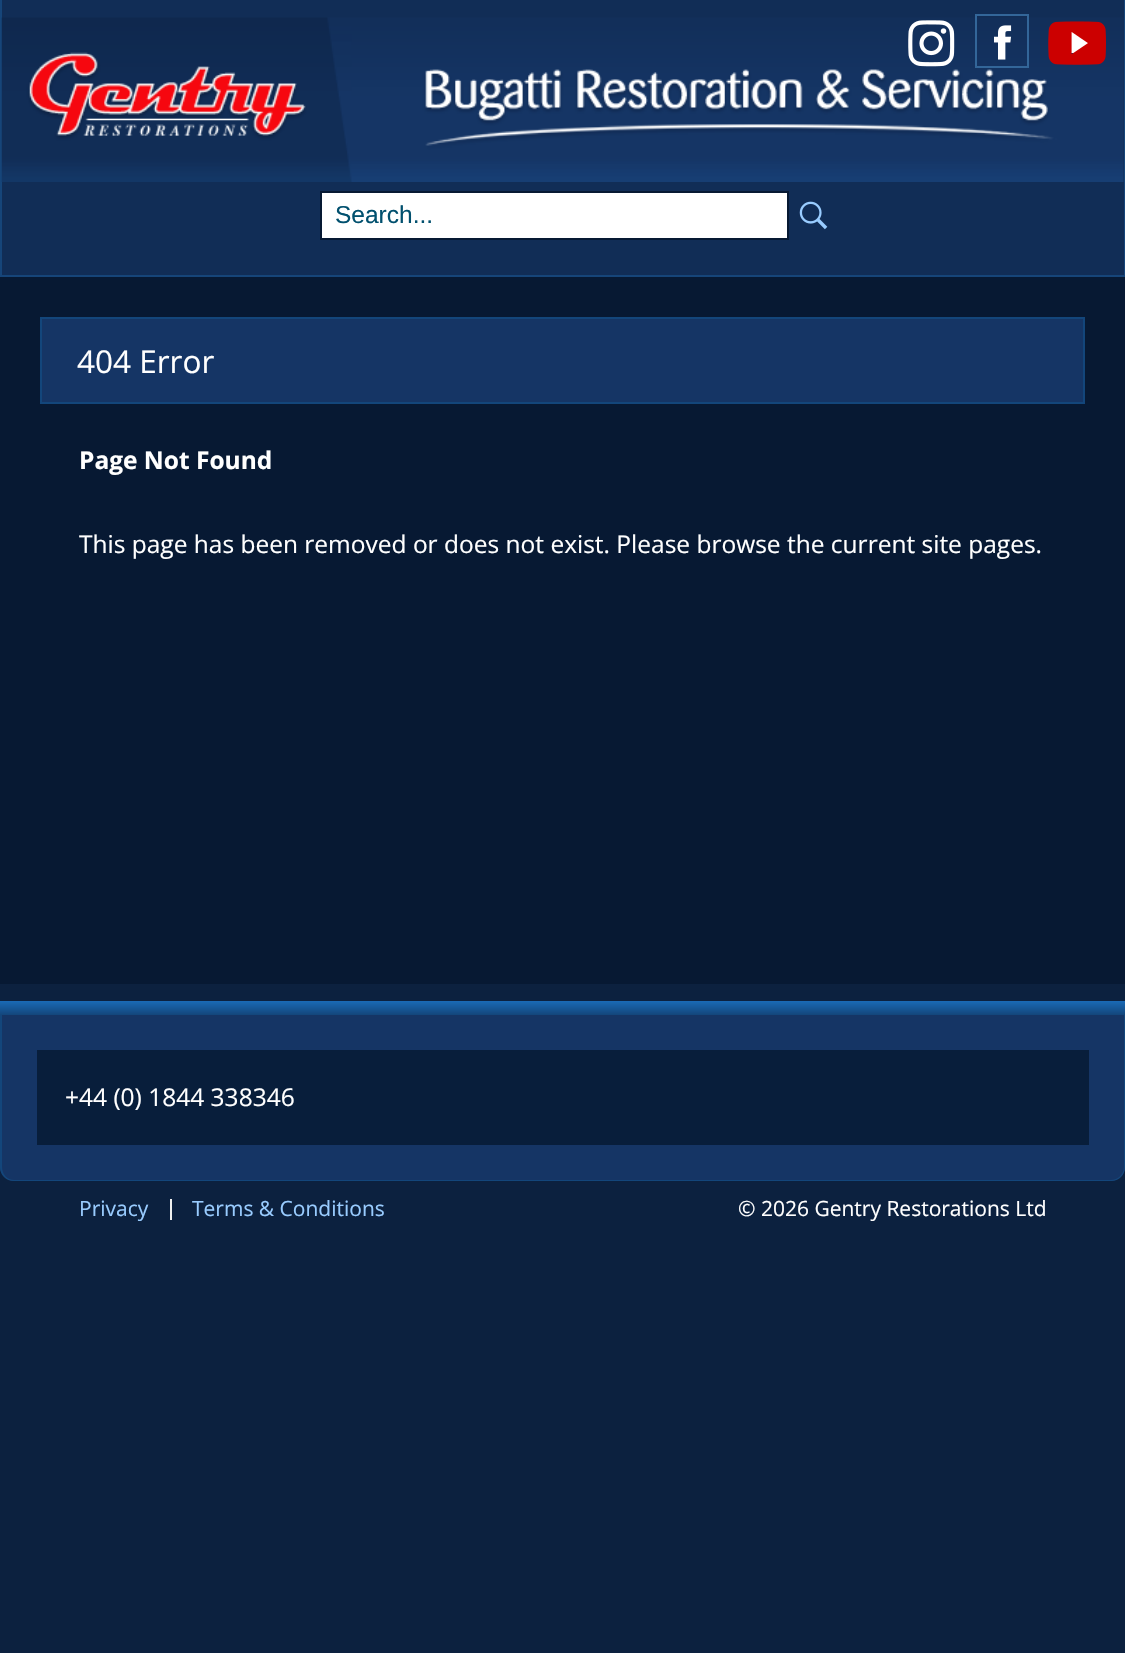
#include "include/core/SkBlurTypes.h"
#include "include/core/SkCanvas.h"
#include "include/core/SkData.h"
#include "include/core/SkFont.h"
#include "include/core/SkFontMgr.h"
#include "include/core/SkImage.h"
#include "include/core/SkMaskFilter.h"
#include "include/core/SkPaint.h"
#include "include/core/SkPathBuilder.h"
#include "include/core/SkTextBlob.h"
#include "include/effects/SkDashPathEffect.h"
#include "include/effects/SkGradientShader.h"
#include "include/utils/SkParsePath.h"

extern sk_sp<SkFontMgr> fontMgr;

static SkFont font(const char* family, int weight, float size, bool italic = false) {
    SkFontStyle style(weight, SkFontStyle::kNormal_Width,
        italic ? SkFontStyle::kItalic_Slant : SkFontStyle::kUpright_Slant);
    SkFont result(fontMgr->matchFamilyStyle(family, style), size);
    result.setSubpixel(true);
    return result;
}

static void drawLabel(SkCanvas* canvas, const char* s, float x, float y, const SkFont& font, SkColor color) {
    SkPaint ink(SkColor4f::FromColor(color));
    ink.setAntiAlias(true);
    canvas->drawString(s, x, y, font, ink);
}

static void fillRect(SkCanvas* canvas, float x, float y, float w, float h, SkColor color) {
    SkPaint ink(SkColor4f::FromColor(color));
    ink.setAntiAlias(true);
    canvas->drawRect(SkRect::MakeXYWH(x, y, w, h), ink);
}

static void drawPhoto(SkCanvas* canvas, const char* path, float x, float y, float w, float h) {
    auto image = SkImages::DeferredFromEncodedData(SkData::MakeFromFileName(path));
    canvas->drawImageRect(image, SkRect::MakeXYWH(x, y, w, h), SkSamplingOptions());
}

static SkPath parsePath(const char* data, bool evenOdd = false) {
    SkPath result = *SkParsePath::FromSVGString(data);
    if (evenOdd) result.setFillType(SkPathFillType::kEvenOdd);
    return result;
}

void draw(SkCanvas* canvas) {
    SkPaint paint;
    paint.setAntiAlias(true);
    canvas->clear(0xFF0C213F);
    fillRect(canvas, 2, 0, 1122, 275, 0xFF112D56);
    fillRect(canvas, 1124, 0, 1, 277, 0xFF164579);
    fillRect(canvas, 0, 275, 1125, 2, 0xFF164579);
    fillRect(canvas, 0, 0, 2, 277, 0xFF164579);
    drawPhoto(canvas, "assets/img2.png", 1, 17, 1123, 165);
    paint.setStroke(true);
    paint.setStrokeWidth(2);
    paint.setColor(0xFF336699);
    canvas->drawRect(SkRect::MakeXYWH(976, 15, 52, 52), paint);
    drawPhoto(canvas, "assets/img1.png", 994, 25, 18, 35);
    drawPhoto(canvas, "assets/img3.png", 908, 20, 47, 47);
    fillRect(canvas, 1071, 32, 17, 21, 0xFFFFFFFF);
    drawPhoto(canvas, "assets/img4.png", 1048, 21, 58, 44);
    paint.setStroke(false);
    paint.setColor(0xFFFFFFFF);
    canvas->drawRect(SkRect::MakeXYWH(321, 192, 467, 47), paint);
    paint.setStroke(true);
    paint.setColor(0xFF071933);
    canvas->drawRect(SkRect::MakeXYWH(321, 192, 467, 47), paint);
    SkFont font1 = font("Liberation Sans", 400, 24.5f);
    drawLabel(canvas, "Search...", 335, 223, font1, 0xFF01506E);
    drawPhoto(canvas, "assets/img5.png", 799, 201, 29, 29);
    fillRect(canvas, 0, 277, 1125, 707, 0xFF071933);
    paint.setStroke(false);
    paint.setColor(0xFF153565);
    canvas->drawRect(SkRect::MakeXYWH(41, 318, 1043, 85), paint);
    paint.setStroke(true);
    paint.setColor(0xFF13467B);
    canvas->drawRect(SkRect::MakeXYWH(41, 318, 1043, 85), paint);
    SkFont font2 = font("Open Sans", 400, 31.5f);
    drawLabel(canvas, "404 Error", 77, 373, font2, 0xFFFFFFFF);
    SkFont font3 = font("Open Sans", 700, 24.5f);
    drawLabel(canvas, "Page Not Found", 79, 469, font3, 0xFFFFFFFF);
    SkFont font4 = font("Open Sans", 400, 24.5f);
    drawLabel(canvas, "This page has been removed or does not exist. Please browse the current site pages.", 79, 553, font4, 0xFFFFFFFF);
    paint.setStroke(false);
    {
        const SkColor colors[] = {0xFF1A6AB6, 0xFF13467B};
        const float stops[] = {0, 1};
        const SkPoint ends[] = {{563, 1001}, {563, 1015}};
        paint.setShader(SkGradientShader::MakeLinear(ends, colors, stops, 2, SkTileMode::kClamp));
        paint.setAlpha(255);
    }
    canvas->drawRect(SkRect::MakeXYWH(0, 1001, 1125, 14), paint);
    paint.setShader(nullptr);
    paint.setColor(0xFF153565);
    canvas->drawPath(parsePath("M0 1015H1125V1167C1125 1174.5 1118.5 1181 1111 1181H14C6.5 1181 0 1174.5 0 1167Z"), paint);
    paint.setColor(0xFF13467B);
    canvas->drawPath(parsePath("M0 1015H1125V1167C1125 1175 1119 1181 1111 1181H14C6 1181 0 1175 0 1167ZM2 1015H1124V1167C1124 1174 1118 1180 1111 1180H14C7 1180 2 1174 2 1167Z", true), paint);
    fillRect(canvas, 37, 1050, 1052, 95, 0xFF081E3B);
    drawLabel(canvas, "+44 (0) 1844 338346", 65, 1106, font4, 0xFFFFFFFF);
    fillRect(canvas, 170, 1199, 2, 21, 0xFFEFEFEF);
    SkFont font5 = font("Open Sans", 400, 21);
    drawLabel(canvas, "Privacy", 79, 1216, font5, 0xFF99CCFF);
    drawLabel(canvas, "Terms & Conditions", 192, 1216, font5, 0xFF99CCFF);
    drawLabel(canvas, "© 2026 Gentry Restorations Ltd", 738, 1216, font5, 0xFFFFFFFF);
}
